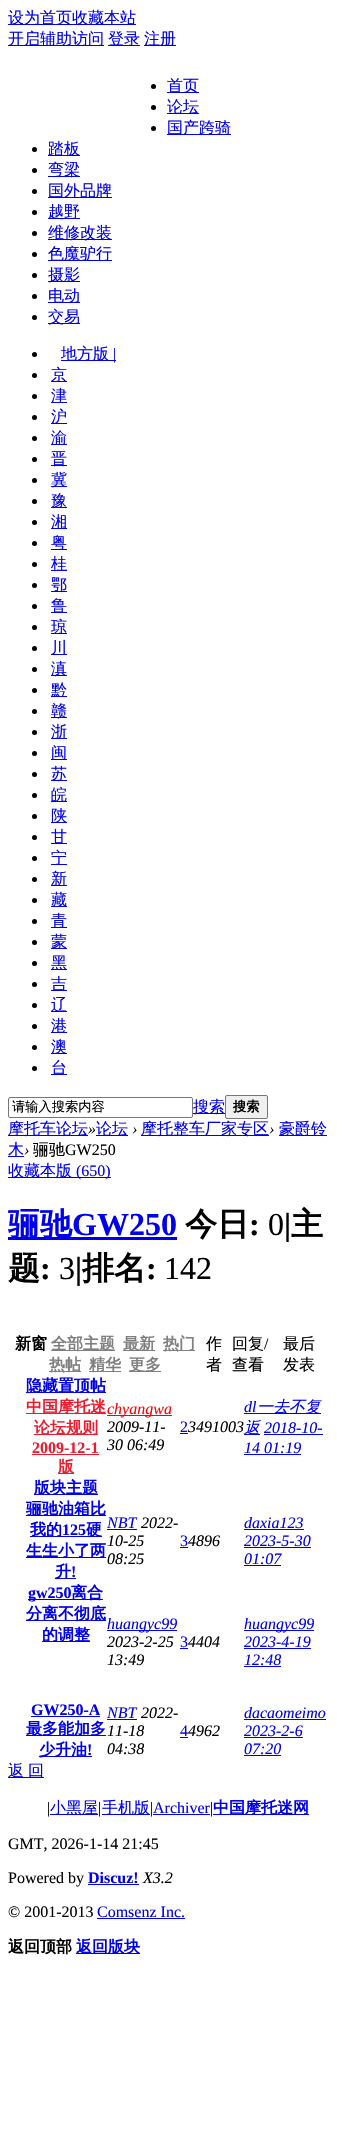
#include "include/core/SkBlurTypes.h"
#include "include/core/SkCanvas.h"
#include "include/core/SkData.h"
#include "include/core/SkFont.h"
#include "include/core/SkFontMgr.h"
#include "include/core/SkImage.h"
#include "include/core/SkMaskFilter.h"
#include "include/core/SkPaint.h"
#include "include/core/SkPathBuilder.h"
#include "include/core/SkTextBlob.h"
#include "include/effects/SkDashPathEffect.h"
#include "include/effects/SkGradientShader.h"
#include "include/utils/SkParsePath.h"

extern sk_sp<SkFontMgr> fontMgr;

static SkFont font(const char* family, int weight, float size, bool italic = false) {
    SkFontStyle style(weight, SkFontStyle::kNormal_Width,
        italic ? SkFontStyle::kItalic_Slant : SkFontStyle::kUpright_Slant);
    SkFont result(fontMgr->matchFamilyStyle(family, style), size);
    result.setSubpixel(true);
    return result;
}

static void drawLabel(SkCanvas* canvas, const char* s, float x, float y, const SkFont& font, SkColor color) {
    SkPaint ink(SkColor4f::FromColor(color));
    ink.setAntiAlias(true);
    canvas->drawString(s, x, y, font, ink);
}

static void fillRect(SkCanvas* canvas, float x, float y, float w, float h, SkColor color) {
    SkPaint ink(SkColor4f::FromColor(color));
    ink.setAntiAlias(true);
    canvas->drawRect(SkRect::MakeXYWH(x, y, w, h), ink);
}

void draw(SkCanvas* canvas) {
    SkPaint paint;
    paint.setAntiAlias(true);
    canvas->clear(0xFFFFFFFF);
    fillRect(canvas, 8, 24, 128, 1, 0xFF0000EE);
    SkFont font1 = font("WenQuanYi Zen Hei", 500, 16);
    drawLabel(canvas, "设为首页收藏本站", 8, 23, font1, 0xFF0000EE);
    fillRect(canvas, 8, 45, 96, 1, 0xFF0000EE);
    drawLabel(canvas, "开启辅助访问", 8, 44, font1, 0xFF0000EE);
    fillRect(canvas, 108, 45, 32, 1, 0xFF0000EE);
    drawLabel(canvas, "登录", 108, 44, font1, 0xFF0000EE);
    fillRect(canvas, 144, 45, 32, 1, 0xFF0000EE);
    drawLabel(canvas, "注册", 144, 44, font1, 0xFF0000EE);
    paint.setColor(0xFF000000);
    canvas->drawCircle(153.5f, 86.5f, 2.5f, paint);
    fillRect(canvas, 167, 92, 32, 1, 0xFF0000EE);
    drawLabel(canvas, "首页", 167, 91, font1, 0xFF0000EE);
    canvas->drawCircle(153.5f, 107.5f, 2.5f, paint);
    fillRect(canvas, 167, 113, 32, 1, 0xFF0000EE);
    drawLabel(canvas, "论坛", 167, 112, font1, 0xFF0000EE);
    canvas->drawCircle(153.5f, 128.5f, 2.5f, paint);
    fillRect(canvas, 167, 134, 64, 1, 0xFF0000EE);
    drawLabel(canvas, "国产跨骑", 167, 133, font1, 0xFF0000EE);
    canvas->drawCircle(34.5f, 149.5f, 2.5f, paint);
    fillRect(canvas, 48, 155, 32, 1, 0xFF0000EE);
    drawLabel(canvas, "踏板", 48, 154, font1, 0xFF0000EE);
    canvas->drawCircle(34.5f, 170.5f, 2.5f, paint);
    fillRect(canvas, 48, 176, 32, 1, 0xFF0000EE);
    drawLabel(canvas, "弯梁", 48, 175, font1, 0xFF0000EE);
    canvas->drawCircle(34.5f, 191.5f, 2.5f, paint);
    fillRect(canvas, 48, 197, 64, 1, 0xFF0000EE);
    drawLabel(canvas, "国外品牌", 48, 196, font1, 0xFF0000EE);
    canvas->drawCircle(34.5f, 212.5f, 2.5f, paint);
    fillRect(canvas, 48, 218, 32, 1, 0xFF0000EE);
    drawLabel(canvas, "越野", 48, 217, font1, 0xFF0000EE);
    canvas->drawCircle(34.5f, 233.5f, 2.5f, paint);
    fillRect(canvas, 48, 239, 64, 1, 0xFF0000EE);
    drawLabel(canvas, "维修改装", 48, 238, font1, 0xFF0000EE);
    canvas->drawCircle(34.5f, 254.5f, 2.5f, paint);
    fillRect(canvas, 48, 260, 64, 1, 0xFF0000EE);
    drawLabel(canvas, "色魔驴行", 48, 259, font1, 0xFF0000EE);
    canvas->drawCircle(34.5f, 275.5f, 2.5f, paint);
    fillRect(canvas, 48, 281, 32, 1, 0xFF0000EE);
    drawLabel(canvas, "摄影", 48, 280, font1, 0xFF0000EE);
    canvas->drawCircle(34.5f, 296.5f, 2.5f, paint);
    fillRect(canvas, 48, 302, 32, 1, 0xFF0000EE);
    drawLabel(canvas, "电动", 48, 301, font1, 0xFF0000EE);
    canvas->drawCircle(34.5f, 317.5f, 2.5f, paint);
    fillRect(canvas, 48, 323, 32, 1, 0xFF0000EE);
    drawLabel(canvas, "交易", 48, 322, font1, 0xFF0000EE);
    canvas->drawCircle(34.5f, 354.5f, 2.5f, paint);
    fillRect(canvas, 61, 360, 55, 1, 0xFF0000EE);
    drawLabel(canvas, "地方版", 61, 359, font1, 0xFF0000EE);
    SkFont font2 = font("Liberation Serif", 400, 16);
    drawLabel(canvas, "|", 113, 359, font2, 0xFF0000EE);
    canvas->drawCircle(34.5f, 375.5f, 2.5f, paint);
    fillRect(canvas, 51, 381, 16, 1, 0xFF0000EE);
    drawLabel(canvas, "京", 51, 380, font1, 0xFF0000EE);
    canvas->drawCircle(34.5f, 396.5f, 2.5f, paint);
    fillRect(canvas, 51, 402, 16, 1, 0xFF0000EE);
    drawLabel(canvas, "津", 51, 401, font1, 0xFF0000EE);
    canvas->drawCircle(34.5f, 417.5f, 2.5f, paint);
    fillRect(canvas, 51, 423, 16, 1, 0xFF0000EE);
    drawLabel(canvas, "沪", 51, 422, font1, 0xFF0000EE);
    canvas->drawCircle(34.5f, 438.5f, 2.5f, paint);
    fillRect(canvas, 51, 444, 16, 1, 0xFF0000EE);
    drawLabel(canvas, "渝", 51, 443, font1, 0xFF0000EE);
    canvas->drawCircle(34.5f, 459.5f, 2.5f, paint);
    fillRect(canvas, 51, 465, 16, 1, 0xFF0000EE);
    drawLabel(canvas, "晋", 51, 464, font1, 0xFF0000EE);
    canvas->drawCircle(34.5f, 480.5f, 2.5f, paint);
    fillRect(canvas, 51, 486, 16, 1, 0xFF0000EE);
    drawLabel(canvas, "冀", 51, 485, font1, 0xFF0000EE);
    canvas->drawCircle(34.5f, 501.5f, 2.5f, paint);
    fillRect(canvas, 51, 507, 16, 1, 0xFF0000EE);
    drawLabel(canvas, "豫", 51, 506, font1, 0xFF0000EE);
    canvas->drawCircle(34.5f, 522.5f, 2.5f, paint);
    fillRect(canvas, 51, 528, 16, 1, 0xFF0000EE);
    drawLabel(canvas, "湘", 51, 527, font1, 0xFF0000EE);
    canvas->drawCircle(34.5f, 543.5f, 2.5f, paint);
    fillRect(canvas, 51, 549, 16, 1, 0xFF0000EE);
    drawLabel(canvas, "粤", 51, 548, font1, 0xFF0000EE);
    canvas->drawCircle(34.5f, 564.5f, 2.5f, paint);
    fillRect(canvas, 51, 570, 16, 1, 0xFF0000EE);
    drawLabel(canvas, "桂", 51, 569, font1, 0xFF0000EE);
    canvas->drawCircle(34.5f, 585.5f, 2.5f, paint);
    fillRect(canvas, 51, 591, 16, 1, 0xFF0000EE);
    drawLabel(canvas, "鄂", 51, 590, font1, 0xFF0000EE);
    canvas->drawCircle(34.5f, 606.5f, 2.5f, paint);
    fillRect(canvas, 51, 612, 16, 1, 0xFF0000EE);
    drawLabel(canvas, "鲁", 51, 611, font1, 0xFF0000EE);
    canvas->drawCircle(34.5f, 627.5f, 2.5f, paint);
    fillRect(canvas, 51, 633, 16, 1, 0xFF0000EE);
    drawLabel(canvas, "琼", 51, 632, font1, 0xFF0000EE);
    canvas->drawCircle(34.5f, 648.5f, 2.5f, paint);
    fillRect(canvas, 51, 654, 16, 1, 0xFF0000EE);
    drawLabel(canvas, "川", 51, 653, font1, 0xFF0000EE);
    canvas->drawCircle(34.5f, 669.5f, 2.5f, paint);
    fillRect(canvas, 51, 675, 16, 1, 0xFF0000EE);
    drawLabel(canvas, "滇", 51, 674, font1, 0xFF0000EE);
    canvas->drawCircle(34.5f, 690.5f, 2.5f, paint);
    fillRect(canvas, 51, 696, 16, 1, 0xFF0000EE);
    drawLabel(canvas, "黔", 51, 695, font1, 0xFF0000EE);
    canvas->drawCircle(34.5f, 711.5f, 2.5f, paint);
    fillRect(canvas, 51, 717, 16, 1, 0xFF0000EE);
    drawLabel(canvas, "赣", 51, 716, font1, 0xFF0000EE);
    canvas->drawCircle(34.5f, 732.5f, 2.5f, paint);
    fillRect(canvas, 51, 738, 16, 1, 0xFF0000EE);
    drawLabel(canvas, "浙", 51, 737, font1, 0xFF0000EE);
    canvas->drawCircle(34.5f, 753.5f, 2.5f, paint);
    fillRect(canvas, 51, 759, 16, 1, 0xFF0000EE);
    drawLabel(canvas, "闽", 51, 758, font1, 0xFF0000EE);
    canvas->drawCircle(34.5f, 774.5f, 2.5f, paint);
    fillRect(canvas, 51, 780, 16, 1, 0xFF0000EE);
    drawLabel(canvas, "苏", 51, 779, font1, 0xFF0000EE);
    canvas->drawCircle(34.5f, 795.5f, 2.5f, paint);
    fillRect(canvas, 51, 801, 16, 1, 0xFF0000EE);
    drawLabel(canvas, "皖", 51, 800, font1, 0xFF0000EE);
    canvas->drawCircle(34.5f, 816.5f, 2.5f, paint);
    fillRect(canvas, 51, 822, 16, 1, 0xFF0000EE);
    drawLabel(canvas, "陕", 51, 821, font1, 0xFF0000EE);
    canvas->drawCircle(34.5f, 837.5f, 2.5f, paint);
    fillRect(canvas, 51, 843, 16, 1, 0xFF0000EE);
    drawLabel(canvas, "甘", 51, 842, font1, 0xFF0000EE);
    canvas->drawCircle(34.5f, 858.5f, 2.5f, paint);
    fillRect(canvas, 51, 864, 16, 1, 0xFF0000EE);
    drawLabel(canvas, "宁", 51, 863, font1, 0xFF0000EE);
    canvas->drawCircle(34.5f, 879.5f, 2.5f, paint);
    fillRect(canvas, 51, 885, 16, 1, 0xFF0000EE);
    drawLabel(canvas, "新", 51, 884, font1, 0xFF0000EE);
    canvas->drawCircle(34.5f, 900.5f, 2.5f, paint);
    fillRect(canvas, 51, 906, 16, 1, 0xFF0000EE);
    drawLabel(canvas, "藏", 51, 905, font1, 0xFF0000EE);
    canvas->drawCircle(34.5f, 921.5f, 2.5f, paint);
    fillRect(canvas, 51, 927, 16, 1, 0xFF0000EE);
    drawLabel(canvas, "青", 51, 926, font1, 0xFF0000EE);
    canvas->drawCircle(34.5f, 942.5f, 2.5f, paint);
    fillRect(canvas, 51, 948, 16, 1, 0xFF0000EE);
    drawLabel(canvas, "蒙", 51, 947, font1, 0xFF0000EE);
    canvas->drawCircle(34.5f, 963.5f, 2.5f, paint);
    fillRect(canvas, 51, 969, 16, 1, 0xFF0000EE);
    drawLabel(canvas, "黑", 51, 968, font1, 0xFF0000EE);
    canvas->drawCircle(34.5f, 984.5f, 2.5f, paint);
    fillRect(canvas, 51, 990, 16, 1, 0xFF0000EE);
    drawLabel(canvas, "吉", 51, 989, font1, 0xFF0000EE);
    canvas->drawCircle(34.5f, 1005.5f, 2.5f, paint);
    fillRect(canvas, 51, 1011, 16, 1, 0xFF0000EE);
    drawLabel(canvas, "辽", 51, 1010, font1, 0xFF0000EE);
    canvas->drawCircle(34.5f, 1026.5f, 2.5f, paint);
    fillRect(canvas, 51, 1032, 16, 1, 0xFF0000EE);
    drawLabel(canvas, "港", 51, 1031, font1, 0xFF0000EE);
    canvas->drawCircle(34.5f, 1047.5f, 2.5f, paint);
    fillRect(canvas, 51, 1053, 16, 1, 0xFF0000EE);
    drawLabel(canvas, "澳", 51, 1052, font1, 0xFF0000EE);
    canvas->drawCircle(34.5f, 1068.5f, 2.5f, paint);
    fillRect(canvas, 51, 1074, 16, 1, 0xFF0000EE);
    drawLabel(canvas, "台", 51, 1073, font1, 0xFF0000EE);
    paint.setStroke(true);
    paint.setStrokeWidth(1);
    paint.setColor(0xFF767676);
    canvas->drawRoundRect(SkRect::MakeXYWH(8.5f, 1097.5f, 184, 20), 1.5f, 1.5f, paint);
    SkFont font3 = font("WenQuanYi Zen Hei", 500, 13.25f);
    drawLabel(canvas, "请输入搜索内容", 12, 1111, font3, 0xFF000000);
    fillRect(canvas, 193, 1113, 32, 1, 0xFF0000EE);
    drawLabel(canvas, "搜索", 193, 1112, font1, 0xFF0000EE);
    paint.setStroke(false);
    paint.setColor(0xFFEFEFEF);
    canvas->drawRoundRect(SkRect::MakeXYWH(225.5f, 1095.5f, 42, 23), 1.5f, 1.5f, paint);
    paint.setStroke(true);
    paint.setColor(0xFF767676);
    canvas->drawRoundRect(SkRect::MakeXYWH(225.5f, 1095.5f, 42, 23), 1.5f, 1.5f, paint);
    SkFont font4 = font("WenQuanYi Zen Hei", 700, 13.25f);
    drawLabel(canvas, "搜索", 233, 1111, font4, 0xFF000000);
    fillRect(canvas, 8, 1135, 80, 1, 0xFF0000EE);
    drawLabel(canvas, "摩托车论坛", 8, 1134, font1, 0xFF0000EE);
    SkFont font5 = font("Liberation Serif", 400, 16, true);
    drawLabel(canvas, "»", 88, 1134, font5, 0xFF000000);
    fillRect(canvas, 96, 1135, 32, 1, 0xFF0000EE);
    drawLabel(canvas, "论坛", 96, 1134, font1, 0xFF0000EE);
    drawLabel(canvas, "›", 132, 1134, font5, 0xFF000000);
    fillRect(canvas, 141, 1135, 128, 1, 0xFF0000EE);
    drawLabel(canvas, "摩托整车厂家专区", 141, 1134, font1, 0xFF0000EE);
    drawLabel(canvas, "›", 269, 1134, font5, 0xFF000000);
    fillRect(canvas, 279, 1135, 48, 1, 0xFF0000EE);
    drawLabel(canvas, "豪爵铃", 279, 1134, font1, 0xFF0000EE);
    fillRect(canvas, 8, 1156, 16, 1, 0xFF0000EE);
    drawLabel(canvas, "木", 8, 1155, font1, 0xFF0000EE);
    drawLabel(canvas, "›", 24, 1155, font5, 0xFF000000);
    drawLabel(canvas, "骊驰", 33, 1155, font1, 0xFF000000);
    drawLabel(canvas, "GW250", 65, 1155, font2, 0xFF000000);
    fillRect(canvas, 8, 1177, 103, 1, 0xFF0000EE);
    drawLabel(canvas, "收藏本版", 8, 1176, font1, 0xFF0000EE);
    drawLabel(canvas, "(650)", 76, 1176, font2, 0xFF0000EE);
    fillRect(canvas, 8, 1237, 169, 3, 0xFF0000EE);
    SkFont font6 = font("WenQuanYi Zen Hei", 700, 32);
    drawLabel(canvas, "骊驰", 8, 1235, font6, 0xFF0000EE);
    SkFont font7 = font("Liberation Serif", 700, 32);
    drawLabel(canvas, "GW250", 72, 1235, font7, 0xFF0000EE);
    drawLabel(canvas, "今日", 185, 1235, font6, 0xFF000000);
    drawLabel(canvas, ":", 249, 1235, font7, 0xFF000000);
    SkFont font8 = font("Liberation Serif", 400, 32);
    drawLabel(canvas, "0", 268, 1235, font8, 0xFF000000);
    drawLabel(canvas, "|", 284, 1235, font7, 0xFF000000);
    drawLabel(canvas, "主", 291, 1235, font6, 0xFF000000);
    drawLabel(canvas, "题", 8, 1279, font6, 0xFF000000);
    drawLabel(canvas, ":", 40, 1279, font7, 0xFF000000);
    drawLabel(canvas, "3", 59, 1279, font8, 0xFF000000);
    drawLabel(canvas, "|", 75, 1279, font7, 0xFF000000);
    drawLabel(canvas, "排名", 82, 1279, font6, 0xFF000000);
    drawLabel(canvas, ":", 146, 1279, font7, 0xFF000000);
    drawLabel(canvas, "142", 164, 1279, font8, 0xFF000000);
    SkFont font9 = font("WenQuanYi Zen Hei", 700, 16);
    drawLabel(canvas, "新窗", 15, 1349, font9, 0xFF000000);
    fillRect(canvas, 51, 1350, 64, 1, 0xFF7F7F7F);
    drawLabel(canvas, "全部主题", 51, 1349, font9, 0xFF7F7F7F);
    fillRect(canvas, 123, 1350, 32, 1, 0xFF7F7F7F);
    drawLabel(canvas, "最新", 123, 1349, font9, 0xFF7F7F7F);
    fillRect(canvas, 163, 1350, 32, 1, 0xFF7F7F7F);
    drawLabel(canvas, "热门", 163, 1349, font9, 0xFF7F7F7F);
    fillRect(canvas, 49, 1371, 32, 1, 0xFF7F7F7F);
    drawLabel(canvas, "热帖", 49, 1370, font9, 0xFF7F7F7F);
    fillRect(canvas, 89, 1371, 32, 1, 0xFF7F7F7F);
    drawLabel(canvas, "精华", 89, 1370, font9, 0xFF7F7F7F);
    fillRect(canvas, 129, 1371, 32, 1, 0xFF7F7F7F);
    drawLabel(canvas, "更多", 129, 1370, font9, 0xFF7F7F7F);
    drawLabel(canvas, "作", 206, 1349, font1, 0xFF000000);
    drawLabel(canvas, "者", 206, 1370, font1, 0xFF000000);
    drawLabel(canvas, "回复", 232, 1349, font1, 0xFF000000);
    drawLabel(canvas, "/", 264, 1349, font2, 0xFF000000);
    drawLabel(canvas, "查看", 232, 1370, font1, 0xFF000000);
    drawLabel(canvas, "最后", 283, 1349, font1, 0xFF000000);
    drawLabel(canvas, "发表", 283, 1370, font1, 0xFF000000);
    fillRect(canvas, 26, 1392, 80, 1, 0xFF0000EE);
    drawLabel(canvas, "隐藏置顶帖", 26, 1391, font9, 0xFF0000EE);
    fillRect(canvas, 26, 1413, 80, 1, 0xFFEE1B2E);
    drawLabel(canvas, "中国摩托迷", 26, 1412, font9, 0xFFEE1B2E);
    fillRect(canvas, 34, 1434, 64, 1, 0xFFEE1B2E);
    drawLabel(canvas, "论坛规则", 34, 1433, font9, 0xFFEE1B2E);
    SkFont font10 = font("Liberation Serif", 700, 16);
    drawLabel(canvas, "2009-12-1", 32, 1453, font10, 0xFFEE1B2E);
    fillRect(canvas, 32, 1454, 67, 1, 0xFFEE1B2E);
    fillRect(canvas, 58, 1473, 16, 1, 0xFFEE1B2E);
    drawLabel(canvas, "版", 58, 1472, font9, 0xFFEE1B2E);
    fillRect(canvas, 107, 1415, 65, 1, 0xFFFF0000);
    drawLabel(canvas, "chyangwa", 107, 1414, font5, 0xFFFF0000);
    drawLabel(canvas, "2009-11-", 107, 1432, font5, 0xFF000000);
    drawLabel(canvas, "30 06:49", 107, 1450, font5, 0xFF000000);
    drawLabel(canvas, "2", 180, 1432, font2, 0xFF0000EE);
    fillRect(canvas, 180, 1433, 8, 1, 0xFF0000EE);
    drawLabel(canvas, "3491003", 188, 1432, font5, 0xFF000000);
    drawLabel(canvas, "dl", 244, 1412, font5, 0xFF0000EE);
    fillRect(canvas, 244, 1413, 77, 1, 0xFF0000EE);
    SkFont font11 = font("WenQuanYi Zen Hei", 500, 16, true);
    drawLabel(canvas, "一去不复", 257, 1412, font11, 0xFF0000EE);
    fillRect(canvas, 244, 1434, 16, 1, 0xFF0000EE);
    drawLabel(canvas, "返", 244, 1433, font11, 0xFF0000EE);
    drawLabel(canvas, "2018-10-", 264, 1433, font5, 0xFF0000EE);
    fillRect(canvas, 264, 1434, 59, 1, 0xFF0000EE);
    drawLabel(canvas, "14 01:19", 244, 1453, font5, 0xFF0000EE);
    fillRect(canvas, 244, 1454, 57, 1, 0xFF0000EE);
    fillRect(canvas, 34, 1494, 64, 1, 0xFF0000EE);
    drawLabel(canvas, "版块主题", 34, 1493, font9, 0xFF0000EE);
    fillRect(canvas, 26, 1515, 80, 1, 0xFF0000EE);
    drawLabel(canvas, "骊驰油箱比", 26, 1514, font9, 0xFF0000EE);
    fillRect(canvas, 30, 1536, 72, 1, 0xFF0000EE);
    drawLabel(canvas, "我的", 30, 1535, font9, 0xFF0000EE);
    drawLabel(canvas, "125", 62, 1535, font10, 0xFF0000EE);
    drawLabel(canvas, "硬", 86, 1535, font9, 0xFF0000EE);
    fillRect(canvas, 26, 1557, 80, 1, 0xFF0000EE);
    drawLabel(canvas, "生生小了两", 26, 1556, font9, 0xFF0000EE);
    fillRect(canvas, 55, 1578, 21, 1, 0xFF0000EE);
    drawLabel(canvas, "升", 55, 1577, font9, 0xFF0000EE);
    drawLabel(canvas, "!", 71, 1577, font10, 0xFF0000EE);
    drawLabel(canvas, "NBT", 107, 1528, font5, 0xFF0000EE);
    fillRect(canvas, 107, 1529, 30, 1, 0xFF0000EE);
    drawLabel(canvas, "2022-", 141, 1528, font5, 0xFF000000);
    drawLabel(canvas, "10-25", 107, 1546, font5, 0xFF000000);
    drawLabel(canvas, "08:25", 107, 1564, font5, 0xFF000000);
    drawLabel(canvas, "3", 180, 1546, font2, 0xFF0000EE);
    fillRect(canvas, 180, 1547, 8, 1, 0xFF0000EE);
    drawLabel(canvas, "4896", 188, 1546, font5, 0xFF000000);
    drawLabel(canvas, "daxia123", 244, 1528, font5, 0xFF0000EE);
    fillRect(canvas, 244, 1529, 60, 1, 0xFF0000EE);
    drawLabel(canvas, "2023-5-30", 244, 1546, font5, 0xFF0000EE);
    fillRect(canvas, 244, 1547, 67, 1, 0xFF0000EE);
    drawLabel(canvas, "01:07", 244, 1564, font5, 0xFF0000EE);
    fillRect(canvas, 244, 1565, 37, 1, 0xFF0000EE);
    fillRect(canvas, 28, 1599, 75, 1, 0xFF0000EE);
    drawLabel(canvas, "gw250", 28, 1598, font10, 0xFF0000EE);
    drawLabel(canvas, "离合", 71, 1598, font9, 0xFF0000EE);
    fillRect(canvas, 26, 1620, 80, 1, 0xFF0000EE);
    drawLabel(canvas, "分离不彻底", 26, 1619, font9, 0xFF0000EE);
    fillRect(canvas, 42, 1641, 48, 1, 0xFF0000EE);
    drawLabel(canvas, "的调整", 42, 1640, font9, 0xFF0000EE);
    fillRect(canvas, 107, 1630, 70, 1, 0xFF0000EE);
    drawLabel(canvas, "huangyc99", 107, 1629, font5, 0xFF0000EE);
    drawLabel(canvas, "2023-2-25", 107, 1647, font5, 0xFF000000);
    drawLabel(canvas, "13:49", 107, 1665, font5, 0xFF000000);
    drawLabel(canvas, "3", 180, 1647, font2, 0xFF0000EE);
    fillRect(canvas, 180, 1648, 8, 1, 0xFF0000EE);
    drawLabel(canvas, "4404", 188, 1647, font5, 0xFF000000);
    fillRect(canvas, 244, 1630, 70, 1, 0xFF0000EE);
    drawLabel(canvas, "huangyc99", 244, 1629, font5, 0xFF0000EE);
    drawLabel(canvas, "2023-4-19", 244, 1647, font5, 0xFF0000EE);
    fillRect(canvas, 244, 1648, 67, 1, 0xFF0000EE);
    drawLabel(canvas, "12:48", 244, 1665, font5, 0xFF0000EE);
    fillRect(canvas, 244, 1666, 37, 1, 0xFF0000EE);
    drawLabel(canvas, "GW250-A", 31, 1715, font10, 0xFF0000EE);
    fillRect(canvas, 31, 1716, 69, 1, 0xFF0000EE);
    fillRect(canvas, 26, 1735, 80, 1, 0xFF0000EE);
    drawLabel(canvas, "最多能加多", 26, 1734, font9, 0xFF0000EE);
    fillRect(canvas, 39, 1756, 53, 1, 0xFF0000EE);
    drawLabel(canvas, "少升油", 39, 1755, font9, 0xFF0000EE);
    drawLabel(canvas, "!", 87, 1755, font10, 0xFF0000EE);
    drawLabel(canvas, "NBT", 107, 1718, font5, 0xFF0000EE);
    fillRect(canvas, 107, 1719, 30, 1, 0xFF0000EE);
    drawLabel(canvas, "2022-", 141, 1718, font5, 0xFF000000);
    drawLabel(canvas, "11-18", 107, 1736, font5, 0xFF000000);
    drawLabel(canvas, "04:38", 107, 1754, font5, 0xFF000000);
    drawLabel(canvas, "4", 180, 1736, font2, 0xFF0000EE);
    fillRect(canvas, 180, 1737, 8, 1, 0xFF0000EE);
    drawLabel(canvas, "4962", 188, 1736, font5, 0xFF000000);
    drawLabel(canvas, "dacaomeimo", 244, 1718, font5, 0xFF0000EE);
    fillRect(canvas, 244, 1719, 82, 1, 0xFF0000EE);
    drawLabel(canvas, "2023-2-6", 244, 1736, font5, 0xFF0000EE);
    fillRect(canvas, 244, 1737, 59, 1, 0xFF0000EE);
    drawLabel(canvas, "07:20", 244, 1754, font5, 0xFF0000EE);
    fillRect(canvas, 244, 1755, 37, 1, 0xFF0000EE);
    fillRect(canvas, 8, 1777, 36, 1, 0xFF0000EE);
    drawLabel(canvas, "返", 8, 1776, font1, 0xFF0000EE);
    drawLabel(canvas, "回", 28, 1776, font1, 0xFF0000EE);
    drawLabel(canvas, "|", 47, 1813, font2, 0xFF000000);
    fillRect(canvas, 50, 1814, 48, 1, 0xFF0000EE);
    drawLabel(canvas, "小黑屋", 50, 1813, font1, 0xFF0000EE);
    drawLabel(canvas, "|", 98, 1813, font2, 0xFF000000);
    fillRect(canvas, 102, 1814, 48, 1, 0xFF0000EE);
    drawLabel(canvas, "手机版", 102, 1813, font1, 0xFF0000EE);
    drawLabel(canvas, "|", 150, 1813, font2, 0xFF000000);
    drawLabel(canvas, "Archiver", 153, 1813, font2, 0xFF0000EE);
    fillRect(canvas, 153, 1814, 57, 1, 0xFF0000EE);
    drawLabel(canvas, "|", 210, 1813, font2, 0xFF000000);
    fillRect(canvas, 213, 1814, 96, 1, 0xFF0000EE);
    drawLabel(canvas, "中国摩托迷网", 213, 1813, font9, 0xFF0000EE);
    drawLabel(canvas, "GMT, 2026-1-14 21:45", 8, 1849, font2, 0xFF000000);
    drawLabel(canvas, "Powered by", 8, 1883, font2, 0xFF000000);
    drawLabel(canvas, "Discuz!", 88, 1883, font10, 0xFF0000EE);
    fillRect(canvas, 88, 1884, 51, 1, 0xFF0000EE);
    drawLabel(canvas, "X3.2", 143, 1883, font5, 0xFF000000);
    drawLabel(canvas, "© 2001-2013", 8, 1917, font2, 0xFF000000);
    drawLabel(canvas, "Comsenz Inc.", 97, 1917, font2, 0xFF0000EE);
    fillRect(canvas, 97, 1918, 88, 1, 0xFF0000EE);
    drawLabel(canvas, "返回顶部", 8, 1952, font9, 0xFF000000);
    fillRect(canvas, 76, 1953, 64, 1, 0xFF0000EE);
    drawLabel(canvas, "返回版块", 76, 1952, font9, 0xFF0000EE);
}
